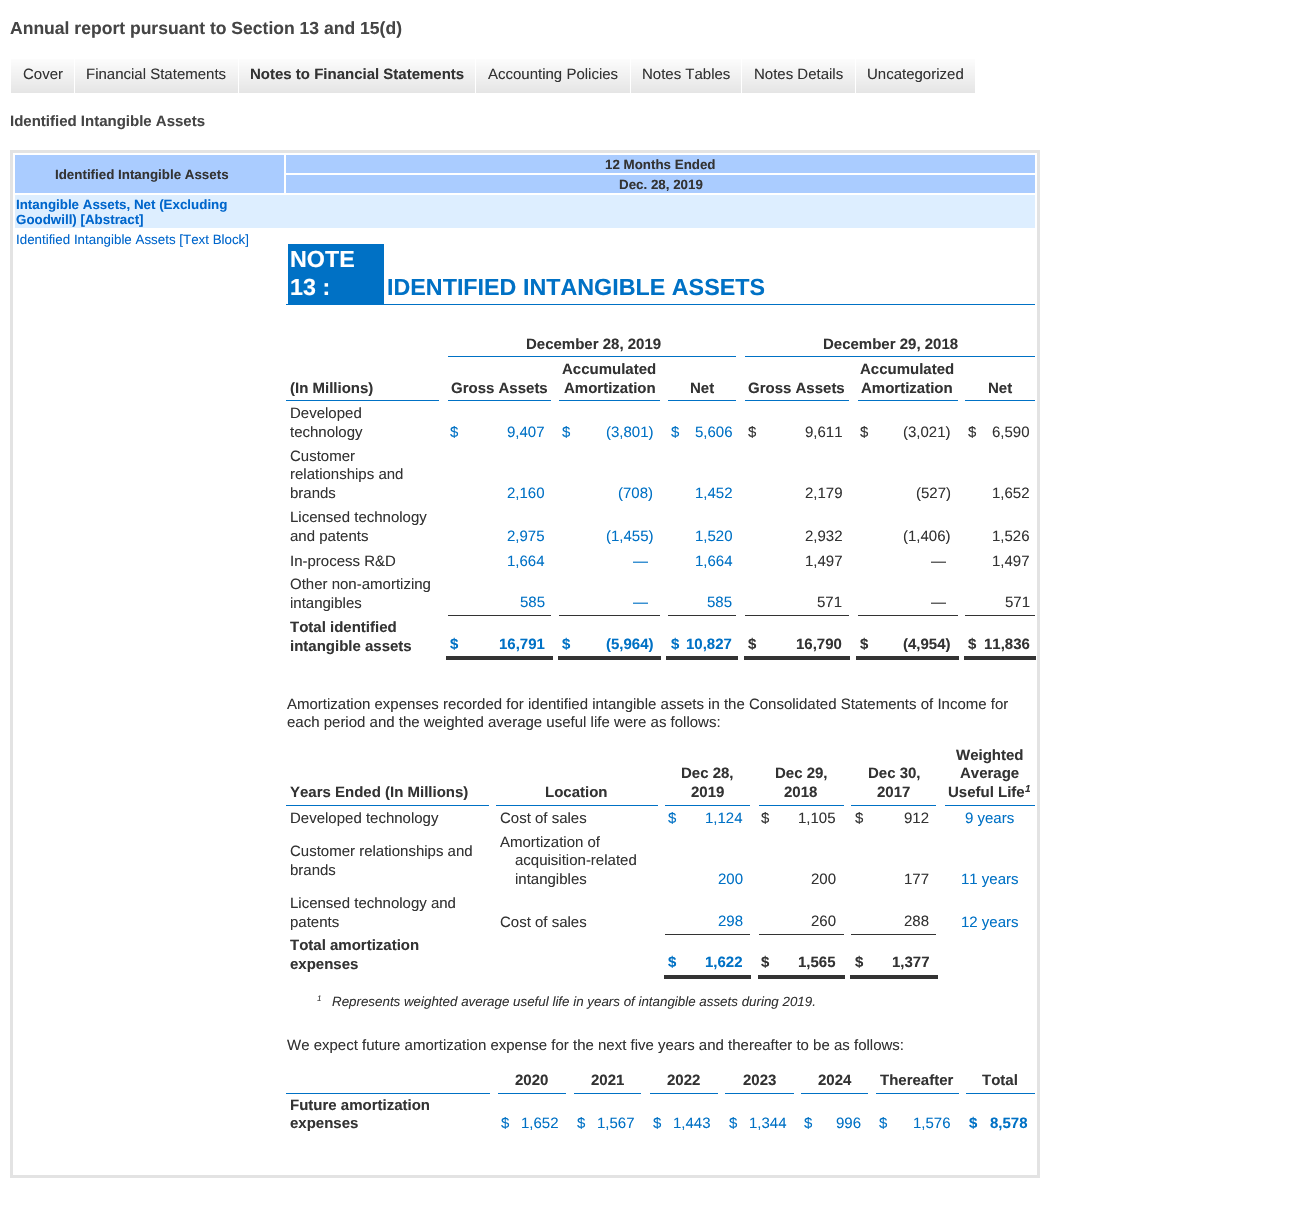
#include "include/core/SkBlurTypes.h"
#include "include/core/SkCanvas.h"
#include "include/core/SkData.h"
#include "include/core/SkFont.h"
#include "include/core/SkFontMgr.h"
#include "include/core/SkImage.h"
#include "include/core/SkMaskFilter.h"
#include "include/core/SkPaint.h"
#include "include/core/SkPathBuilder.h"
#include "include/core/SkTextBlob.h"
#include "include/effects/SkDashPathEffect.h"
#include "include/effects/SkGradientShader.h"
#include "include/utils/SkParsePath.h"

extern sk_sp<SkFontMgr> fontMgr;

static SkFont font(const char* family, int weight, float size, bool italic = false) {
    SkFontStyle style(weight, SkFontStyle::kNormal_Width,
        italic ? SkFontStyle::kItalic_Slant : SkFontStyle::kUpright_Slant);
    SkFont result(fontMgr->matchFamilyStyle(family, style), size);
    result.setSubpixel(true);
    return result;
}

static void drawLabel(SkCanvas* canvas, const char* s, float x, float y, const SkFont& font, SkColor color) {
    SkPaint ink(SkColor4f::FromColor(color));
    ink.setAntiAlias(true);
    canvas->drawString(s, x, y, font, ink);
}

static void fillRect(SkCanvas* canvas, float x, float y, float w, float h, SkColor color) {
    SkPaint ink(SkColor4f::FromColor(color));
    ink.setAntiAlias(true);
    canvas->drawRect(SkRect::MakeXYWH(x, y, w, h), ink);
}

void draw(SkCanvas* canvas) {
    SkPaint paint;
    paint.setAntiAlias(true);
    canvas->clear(0xFFFFFFFF);
    SkFont font1 = font("Liberation Sans", 700, 17.55f);
    drawLabel(canvas, "Annual report pursuant to Section 13 and 15(d)", 10, 34, font1, 0xFF454545);
    {
        const SkColor colors[] = {0xFFFFFFFF, 0xFFE5E5E5};
        const float stops[] = {0, 1};
        const SkPoint ends[] = {{43, 55}, {43, 93}};
        paint.setShader(SkGradientShader::MakeLinear(ends, colors, stops, 2, SkTileMode::kClamp));
        paint.setAlpha(255);
    }
    canvas->drawRect(SkRect::MakeXYWH(11, 59, 63, 34), paint);
    SkFont font2 = font("Liberation Sans", 400, 15);
    drawLabel(canvas, "Cover", 23, 79, font2, 0xFF333333);
    {
        const SkColor colors[] = {0xFFFFFFFF, 0xFFE5E5E5};
        const float stops[] = {0, 1};
        const SkPoint ends[] = {{156, 55}, {156, 93}};
        paint.setShader(SkGradientShader::MakeLinear(ends, colors, stops, 2, SkTileMode::kClamp));
        paint.setAlpha(255);
    }
    canvas->drawRect(SkRect::MakeXYWH(75, 59, 163, 34), paint);
    drawLabel(canvas, "Financial Statements", 86, 79, font2, 0xFF333333);
    {
        const SkColor colors[] = {0xFFFFFFFF, 0xFFE5E5E5};
        const float stops[] = {0, 1};
        const SkPoint ends[] = {{357, 55}, {357, 93}};
        paint.setShader(SkGradientShader::MakeLinear(ends, colors, stops, 2, SkTileMode::kClamp));
        paint.setAlpha(255);
    }
    canvas->drawRect(SkRect::MakeXYWH(239, 59, 236, 34), paint);
    SkFont font3 = font("Liberation Sans", 700, 15);
    drawLabel(canvas, "Notes to Financial Statements", 250, 79, font3, 0xFF333333);
    {
        const SkColor colors[] = {0xFFFFFFFF, 0xFFE5E5E5};
        const float stops[] = {0, 1};
        const SkPoint ends[] = {{553, 55}, {553, 93}};
        paint.setShader(SkGradientShader::MakeLinear(ends, colors, stops, 2, SkTileMode::kClamp));
        paint.setAlpha(255);
    }
    canvas->drawRect(SkRect::MakeXYWH(476, 59, 154, 34), paint);
    drawLabel(canvas, "Accounting Policies", 488, 79, font2, 0xFF333333);
    {
        const SkColor colors[] = {0xFFFFFFFF, 0xFFE5E5E5};
        const float stops[] = {0, 1};
        const SkPoint ends[] = {{686, 55}, {686, 93}};
        paint.setShader(SkGradientShader::MakeLinear(ends, colors, stops, 2, SkTileMode::kClamp));
        paint.setAlpha(255);
    }
    canvas->drawRect(SkRect::MakeXYWH(631, 59, 110, 34), paint);
    drawLabel(canvas, "Notes Tables", 642, 79, font2, 0xFF333333);
    {
        const SkColor colors[] = {0xFFFFFFFF, 0xFFE5E5E5};
        const float stops[] = {0, 1};
        const SkPoint ends[] = {{799, 55}, {799, 93}};
        paint.setShader(SkGradientShader::MakeLinear(ends, colors, stops, 2, SkTileMode::kClamp));
        paint.setAlpha(255);
    }
    canvas->drawRect(SkRect::MakeXYWH(742, 59, 113, 34), paint);
    drawLabel(canvas, "Notes Details", 754, 79, font2, 0xFF333333);
    {
        const SkColor colors[] = {0xFFFFFFFF, 0xFFE5E5E5};
        const float stops[] = {0, 1};
        const SkPoint ends[] = {{916, 55}, {916, 93}};
        paint.setShader(SkGradientShader::MakeLinear(ends, colors, stops, 2, SkTileMode::kClamp));
        paint.setAlpha(255);
    }
    canvas->drawRect(SkRect::MakeXYWH(856, 59, 119, 34), paint);
    drawLabel(canvas, "Uncategorized", 867, 79, font2, 0xFF333333);
    drawLabel(canvas, "Identified Intangible Assets", 10, 126, font3, 0xFF454545);
    paint.setStroke(true);
    paint.setStrokeWidth(3);
    paint.setShader(nullptr);
    paint.setColor(0xFFE3E3E3);
    canvas->drawRect(SkRect::MakeXYWH(11.5f, 151.5f, 1027, 1025), paint);
    fillRect(canvas, 286, 155, 749, 18, 0xFFAACCFF);
    SkFont font4 = font("Liberation Sans", 700, 13.35f);
    drawLabel(canvas, "12 Months Ended", 605, 169, font4, 0xFF333333);
    fillRect(canvas, 15, 155, 269, 38, 0xFFAACCFF);
    drawLabel(canvas, "Identified Intangible Assets", 55, 179, font4, 0xFF333333);
    fillRect(canvas, 286, 175, 749, 18, 0xFFAACCFF);
    drawLabel(canvas, "Dec. 28, 2019", 619, 189, font4, 0xFF333333);
    fillRect(canvas, 15, 195, 1020, 33, 0xFFDDEEFF);
    drawLabel(canvas, "Intangible Assets, Net (Excluding", 16, 209, font4, 0xFF0066CC);
    drawLabel(canvas, "Goodwill) [Abstract]", 16, 224, font4, 0xFF0066CC);
    SkFont font5 = font("Liberation Sans", 400, 13.35f);
    drawLabel(canvas, "Identified Intangible Assets [Text Block]", 16, 244, font5, 0xFF0066CC);
    fillRect(canvas, 288, 244, 96, 60, 0xFF0071C5);
    SkFont font6 = font("Liberation Sans", 700, 23.3f);
    drawLabel(canvas, "NOTE", 290, 267, font6, 0xFFFFFFFF);
    drawLabel(canvas, "13 :", 290, 295, font6, 0xFFFFFFFF);
    fillRect(canvas, 286, 304, 749, 1, 0xFF0071C5);
    drawLabel(canvas, "IDENTIFIED INTANGIBLE ASSETS", 387, 295, font6, 0xFF0071C5);
    fillRect(canvas, 448, 356, 288, 1, 0xFF0071C5);
    drawLabel(canvas, "December 28, 2019", 526, 349, font3, 0xFF333333);
    drawLabel(canvas, "December 29, 2018", 823, 349, font3, 0xFF333333);
    fillRect(canvas, 286, 400, 153, 1, 0xFF0071C5);
    drawLabel(canvas, "(In Millions)", 290, 393, font3, 0xFF333333);
    drawLabel(canvas, "Gross Assets", 451, 393, font3, 0xFF333333);
    drawLabel(canvas, "Accumulated", 562, 374, font3, 0xFF333333);
    drawLabel(canvas, "Amortization", 564, 393, font3, 0xFF333333);
    drawLabel(canvas, "Net", 690, 393, font3, 0xFF333333);
    drawLabel(canvas, "Gross Assets", 748, 393, font3, 0xFF333333);
    drawLabel(canvas, "Accumulated", 860, 374, font3, 0xFF333333);
    drawLabel(canvas, "Amortization", 861, 393, font3, 0xFF333333);
    fillRect(canvas, 745, 356, 290, 1, 0xFF0071C5);
    drawLabel(canvas, "Net", 988, 393, font3, 0xFF333333);
    fillRect(canvas, 448, 400, 103, 1, 0xFF0071C5);
    fillRect(canvas, 559, 400, 101, 1, 0xFF0071C5);
    fillRect(canvas, 668, 400, 68, 1, 0xFF0071C5);
    fillRect(canvas, 745, 400, 104, 1, 0xFF0071C5);
    fillRect(canvas, 858, 400, 100, 1, 0xFF0071C5);
    fillRect(canvas, 965, 400, 70, 1, 0xFF0071C5);
    drawLabel(canvas, "Developed", 290, 418, font2, 0xFF333333);
    drawLabel(canvas, "technology", 290, 437, font2, 0xFF333333);
    drawLabel(canvas, "$", 450, 437, font2, 0xFF0071C5);
    drawLabel(canvas, "9,407", 507, 437, font2, 0xFF0071C5);
    drawLabel(canvas, "$", 562, 437, font2, 0xFF0071C5);
    drawLabel(canvas, "(3,801)", 606, 437, font2, 0xFF0071C5);
    drawLabel(canvas, "$", 671, 437, font2, 0xFF0071C5);
    drawLabel(canvas, "5,606", 695, 437, font2, 0xFF0071C5);
    drawLabel(canvas, "$", 748, 437, font2, 0xFF333333);
    drawLabel(canvas, "9,611", 805, 437, font2, 0xFF333333);
    drawLabel(canvas, "$", 860, 437, font2, 0xFF333333);
    drawLabel(canvas, "(3,021)", 903, 437, font2, 0xFF333333);
    drawLabel(canvas, "$", 968, 437, font2, 0xFF333333);
    drawLabel(canvas, "6,590", 992, 437, font2, 0xFF333333);
    drawLabel(canvas, "Customer", 290, 461, font2, 0xFF333333);
    drawLabel(canvas, "relationships and", 290, 479, font2, 0xFF333333);
    drawLabel(canvas, "brands", 290, 498, font2, 0xFF333333);
    drawLabel(canvas, "2,160", 507, 498, font2, 0xFF0071C5);
    drawLabel(canvas, "(708)", 618, 498, font2, 0xFF0071C5);
    drawLabel(canvas, "1,452", 695, 498, font2, 0xFF0071C5);
    drawLabel(canvas, "2,179", 805, 498, font2, 0xFF333333);
    drawLabel(canvas, "(527)", 916, 498, font2, 0xFF333333);
    drawLabel(canvas, "1,652", 992, 498, font2, 0xFF333333);
    drawLabel(canvas, "Licensed technology", 290, 522, font2, 0xFF333333);
    drawLabel(canvas, "and patents", 290, 541, font2, 0xFF333333);
    drawLabel(canvas, "2,975", 507, 541, font2, 0xFF0071C5);
    drawLabel(canvas, "(1,455)", 606, 541, font2, 0xFF0071C5);
    drawLabel(canvas, "1,520", 695, 541, font2, 0xFF0071C5);
    drawLabel(canvas, "2,932", 805, 541, font2, 0xFF333333);
    drawLabel(canvas, "(1,406)", 903, 541, font2, 0xFF333333);
    drawLabel(canvas, "1,526", 992, 541, font2, 0xFF333333);
    drawLabel(canvas, "In-process R&D", 290, 566, font2, 0xFF333333);
    drawLabel(canvas, "1,664", 507, 566, font2, 0xFF0071C5);
    drawLabel(canvas, "—", 633, 566, font2, 0xFF0071C5);
    drawLabel(canvas, "1,664", 695, 566, font2, 0xFF0071C5);
    drawLabel(canvas, "1,497", 805, 566, font2, 0xFF333333);
    drawLabel(canvas, "—", 931, 566, font2, 0xFF333333);
    drawLabel(canvas, "1,497", 992, 566, font2, 0xFF333333);
    drawLabel(canvas, "Other non-amortizing", 290, 589, font2, 0xFF333333);
    drawLabel(canvas, "intangibles", 290, 608, font2, 0xFF333333);
    drawLabel(canvas, "585", 520, 607, font2, 0xFF0071C5);
    drawLabel(canvas, "—", 633, 607, font2, 0xFF0071C5);
    drawLabel(canvas, "585", 707, 607, font2, 0xFF0071C5);
    drawLabel(canvas, "571", 817, 607, font2, 0xFF333333);
    drawLabel(canvas, "—", 931, 607, font2, 0xFF333333);
    drawLabel(canvas, "571", 1005, 607, font2, 0xFF333333);
    drawLabel(canvas, "Total identified", 290, 632, font3, 0xFF333333);
    drawLabel(canvas, "intangible assets", 290, 651, font3, 0xFF333333);
    fillRect(canvas, 448, 615, 103, 1, 0xFF333333);
    fillRect(canvas, 446, 656, 107, 4, 0xFF333333);
    fillRect(canvas, 559, 615, 101, 1, 0xFF333333);
    fillRect(canvas, 558, 656, 103, 4, 0xFF333333);
    fillRect(canvas, 668, 615, 68, 1, 0xFF333333);
    fillRect(canvas, 666, 656, 72, 4, 0xFF333333);
    fillRect(canvas, 745, 615, 104, 1, 0xFF333333);
    fillRect(canvas, 744, 656, 106, 4, 0xFF333333);
    fillRect(canvas, 858, 615, 100, 1, 0xFF333333);
    fillRect(canvas, 856, 656, 103, 4, 0xFF333333);
    fillRect(canvas, 965, 615, 70, 1, 0xFF333333);
    fillRect(canvas, 964, 656, 72, 4, 0xFF333333);
    drawLabel(canvas, "$", 450, 649, font3, 0xFF0071C5);
    drawLabel(canvas, "16,791", 499, 649, font3, 0xFF0071C5);
    drawLabel(canvas, "$", 562, 649, font3, 0xFF0071C5);
    drawLabel(canvas, "(5,964)", 606, 649, font3, 0xFF0071C5);
    drawLabel(canvas, "$", 671, 649, font3, 0xFF0071C5);
    drawLabel(canvas, "10,827", 686, 649, font3, 0xFF0071C5);
    drawLabel(canvas, "$", 748, 649, font3, 0xFF333333);
    drawLabel(canvas, "16,790", 796, 649, font3, 0xFF333333);
    drawLabel(canvas, "$", 860, 649, font3, 0xFF333333);
    drawLabel(canvas, "(4,954)", 903, 649, font3, 0xFF333333);
    drawLabel(canvas, "$", 968, 649, font3, 0xFF333333);
    drawLabel(canvas, "11,836", 984, 649, font3, 0xFF333333);
    drawLabel(canvas, "Amortization expenses recorded for identified intangible assets in the Consolidated Statements of Income for", 287, 709, font2, 0xFF333333);
    drawLabel(canvas, "each period and the weighted average useful life were as follows:", 287, 727, font2, 0xFF333333);
    fillRect(canvas, 286, 805, 203, 1, 0xFF0071C5);
    drawLabel(canvas, "Years Ended (In Millions)", 290, 797, font3, 0xFF333333);
    fillRect(canvas, 496, 805, 162, 1, 0xFF0071C5);
    drawLabel(canvas, "Location", 545, 797, font3, 0xFF333333);
    drawLabel(canvas, "Dec 28,", 681, 778, font3, 0xFF333333);
    drawLabel(canvas, "2019", 691, 797, font3, 0xFF333333);
    drawLabel(canvas, "Dec 29,", 775, 778, font3, 0xFF333333);
    drawLabel(canvas, "2018", 784, 797, font3, 0xFF333333);
    fillRect(canvas, 851, 805, 85, 1, 0xFF0071C5);
    drawLabel(canvas, "Dec 30,", 868, 778, font3, 0xFF333333);
    drawLabel(canvas, "2017", 877, 797, font3, 0xFF333333);
    fillRect(canvas, 945, 805, 90, 1, 0xFF0071C5);
    drawLabel(canvas, "Weighted", 956, 760, font3, 0xFF333333);
    drawLabel(canvas, "Average", 960, 778, font3, 0xFF333333);
    drawLabel(canvas, "Useful Life", 948, 797, font3, 0xFF333333);
    SkFont font7 = font("Liberation Sans", 700, 10, true);
    drawLabel(canvas, "1", 1025, 792, font7, 0xFF333333);
    fillRect(canvas, 665, 805, 85, 1, 0xFF0071C5);
    fillRect(canvas, 759, 805, 85, 1, 0xFF0071C5);
    drawLabel(canvas, "Developed technology", 290, 823, font2, 0xFF333333);
    drawLabel(canvas, "Cost of sales", 500, 823, font2, 0xFF333333);
    drawLabel(canvas, "$", 668, 823, font2, 0xFF0071C5);
    drawLabel(canvas, "1,124", 705, 823, font2, 0xFF0071C5);
    drawLabel(canvas, "$", 761, 823, font2, 0xFF333333);
    drawLabel(canvas, "1,105", 798, 823, font2, 0xFF333333);
    drawLabel(canvas, "$", 855, 823, font2, 0xFF333333);
    drawLabel(canvas, "912", 904, 823, font2, 0xFF333333);
    drawLabel(canvas, "9 years", 965, 823, font2, 0xFF0071C5);
    drawLabel(canvas, "Customer relationships and", 290, 856, font2, 0xFF333333);
    drawLabel(canvas, "brands", 290, 875, font2, 0xFF333333);
    drawLabel(canvas, "Amortization of", 500, 847, font2, 0xFF333333);
    drawLabel(canvas, "acquisition-related", 515, 865, font2, 0xFF333333);
    drawLabel(canvas, "intangibles", 515, 884, font2, 0xFF333333);
    drawLabel(canvas, "200", 718, 884, font2, 0xFF0071C5);
    drawLabel(canvas, "200", 811, 884, font2, 0xFF333333);
    drawLabel(canvas, "177", 904, 884, font2, 0xFF333333);
    drawLabel(canvas, "11 years", 961, 884, font2, 0xFF0071C5);
    drawLabel(canvas, "Licensed technology and", 290, 908, font2, 0xFF333333);
    drawLabel(canvas, "patents", 290, 927, font2, 0xFF333333);
    drawLabel(canvas, "Cost of sales", 500, 927, font2, 0xFF333333);
    drawLabel(canvas, "298", 718, 926, font2, 0xFF0071C5);
    drawLabel(canvas, "260", 811, 926, font2, 0xFF333333);
    drawLabel(canvas, "288", 904, 926, font2, 0xFF333333);
    drawLabel(canvas, "12 years", 961, 927, font2, 0xFF0071C5);
    drawLabel(canvas, "Total amortization", 290, 950, font3, 0xFF333333);
    drawLabel(canvas, "expenses", 290, 969, font3, 0xFF333333);
    fillRect(canvas, 665, 934, 85, 1, 0xFF333333);
    fillRect(canvas, 664, 975, 87, 4, 0xFF333333);
    fillRect(canvas, 759, 934, 85, 1, 0xFF333333);
    fillRect(canvas, 758, 975, 87, 4, 0xFF333333);
    fillRect(canvas, 851, 934, 85, 1, 0xFF333333);
    fillRect(canvas, 850, 975, 88, 4, 0xFF333333);
    drawLabel(canvas, "$", 668, 967, font3, 0xFF0071C5);
    drawLabel(canvas, "1,622", 705, 967, font3, 0xFF0071C5);
    drawLabel(canvas, "$", 761, 967, font3, 0xFF333333);
    drawLabel(canvas, "1,565", 798, 967, font3, 0xFF333333);
    drawLabel(canvas, "$", 855, 967, font3, 0xFF333333);
    drawLabel(canvas, "1,377", 892, 967, font3, 0xFF333333);
    SkFont font8 = font("Liberation Sans", 400, 8, true);
    drawLabel(canvas, "1", 317, 1001, font8, 0xFF333333);
    SkFont font9 = font("Liberation Sans", 400, 13.35f, true);
    drawLabel(canvas, "Represents weighted average useful life in years of intangible assets during 2019.", 332, 1006, font9, 0xFF333333);
    drawLabel(canvas, "We expect future amortization expense for the next five years and thereafter to be as follows:", 287, 1050, font2, 0xFF333333);
    fillRect(canvas, 498, 1093, 68, 1, 0xFF0071C5);
    drawLabel(canvas, "2020", 515, 1085, font3, 0xFF333333);
    fillRect(canvas, 574, 1093, 67, 1, 0xFF0071C5);
    drawLabel(canvas, "2021", 591, 1085, font3, 0xFF333333);
    fillRect(canvas, 650, 1093, 68, 1, 0xFF0071C5);
    drawLabel(canvas, "2022", 667, 1085, font3, 0xFF333333);
    fillRect(canvas, 725, 1093, 69, 1, 0xFF0071C5);
    drawLabel(canvas, "2023", 743, 1085, font3, 0xFF333333);
    fillRect(canvas, 801, 1093, 67, 1, 0xFF0071C5);
    drawLabel(canvas, "2024", 818, 1085, font3, 0xFF333333);
    fillRect(canvas, 876, 1093, 83, 1, 0xFF0071C5);
    drawLabel(canvas, "Thereafter", 880, 1085, font3, 0xFF333333);
    fillRect(canvas, 966, 1093, 69, 1, 0xFF0071C5);
    drawLabel(canvas, "Total", 982, 1085, font3, 0xFF333333);
    fillRect(canvas, 286, 1093, 204, 1, 0xFF0071C5);
    drawLabel(canvas, "Future amortization", 290, 1110, font3, 0xFF333333);
    drawLabel(canvas, "expenses", 290, 1128, font3, 0xFF333333);
    drawLabel(canvas, "$", 501, 1128, font2, 0xFF0071C5);
    drawLabel(canvas, "1,652", 521, 1128, font2, 0xFF0071C5);
    drawLabel(canvas, "$", 577, 1128, font2, 0xFF0071C5);
    drawLabel(canvas, "1,567", 597, 1128, font2, 0xFF0071C5);
    drawLabel(canvas, "$", 653, 1128, font2, 0xFF0071C5);
    drawLabel(canvas, "1,443", 673, 1128, font2, 0xFF0071C5);
    drawLabel(canvas, "$", 729, 1128, font2, 0xFF0071C5);
    drawLabel(canvas, "1,344", 749, 1128, font2, 0xFF0071C5);
    drawLabel(canvas, "$", 804, 1128, font2, 0xFF0071C5);
    drawLabel(canvas, "996", 836, 1128, font2, 0xFF0071C5);
    drawLabel(canvas, "$", 879, 1128, font2, 0xFF0071C5);
    drawLabel(canvas, "1,576", 913, 1128, font2, 0xFF0071C5);
    drawLabel(canvas, "$", 969, 1128, font3, 0xFF0071C5);
    drawLabel(canvas, "8,578", 990, 1128, font3, 0xFF0071C5);
}
